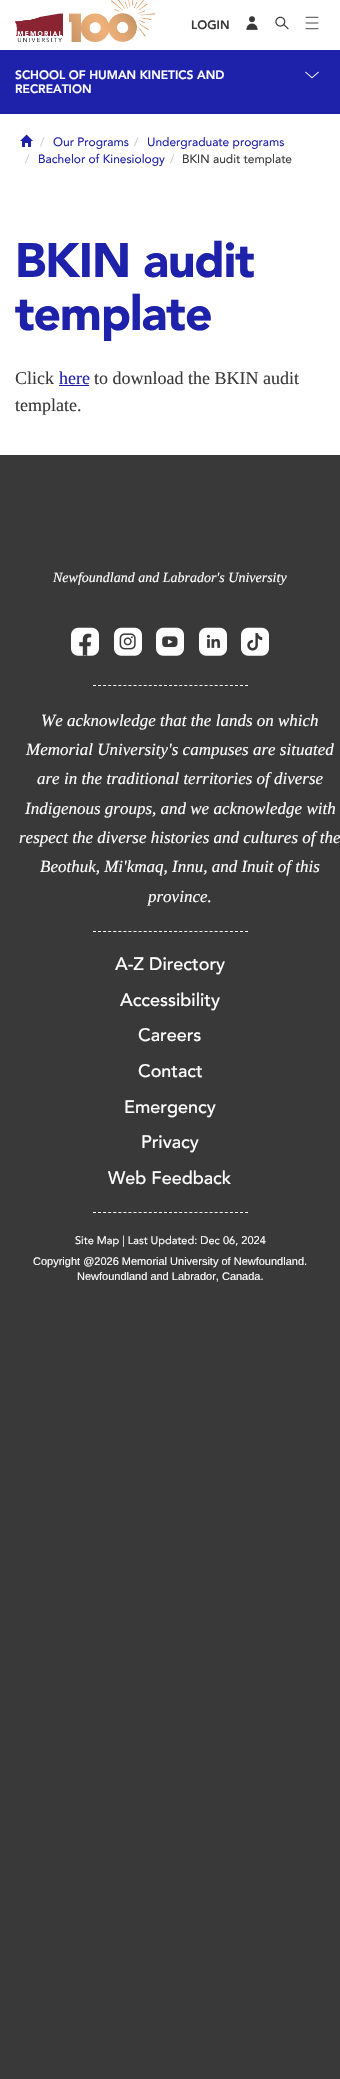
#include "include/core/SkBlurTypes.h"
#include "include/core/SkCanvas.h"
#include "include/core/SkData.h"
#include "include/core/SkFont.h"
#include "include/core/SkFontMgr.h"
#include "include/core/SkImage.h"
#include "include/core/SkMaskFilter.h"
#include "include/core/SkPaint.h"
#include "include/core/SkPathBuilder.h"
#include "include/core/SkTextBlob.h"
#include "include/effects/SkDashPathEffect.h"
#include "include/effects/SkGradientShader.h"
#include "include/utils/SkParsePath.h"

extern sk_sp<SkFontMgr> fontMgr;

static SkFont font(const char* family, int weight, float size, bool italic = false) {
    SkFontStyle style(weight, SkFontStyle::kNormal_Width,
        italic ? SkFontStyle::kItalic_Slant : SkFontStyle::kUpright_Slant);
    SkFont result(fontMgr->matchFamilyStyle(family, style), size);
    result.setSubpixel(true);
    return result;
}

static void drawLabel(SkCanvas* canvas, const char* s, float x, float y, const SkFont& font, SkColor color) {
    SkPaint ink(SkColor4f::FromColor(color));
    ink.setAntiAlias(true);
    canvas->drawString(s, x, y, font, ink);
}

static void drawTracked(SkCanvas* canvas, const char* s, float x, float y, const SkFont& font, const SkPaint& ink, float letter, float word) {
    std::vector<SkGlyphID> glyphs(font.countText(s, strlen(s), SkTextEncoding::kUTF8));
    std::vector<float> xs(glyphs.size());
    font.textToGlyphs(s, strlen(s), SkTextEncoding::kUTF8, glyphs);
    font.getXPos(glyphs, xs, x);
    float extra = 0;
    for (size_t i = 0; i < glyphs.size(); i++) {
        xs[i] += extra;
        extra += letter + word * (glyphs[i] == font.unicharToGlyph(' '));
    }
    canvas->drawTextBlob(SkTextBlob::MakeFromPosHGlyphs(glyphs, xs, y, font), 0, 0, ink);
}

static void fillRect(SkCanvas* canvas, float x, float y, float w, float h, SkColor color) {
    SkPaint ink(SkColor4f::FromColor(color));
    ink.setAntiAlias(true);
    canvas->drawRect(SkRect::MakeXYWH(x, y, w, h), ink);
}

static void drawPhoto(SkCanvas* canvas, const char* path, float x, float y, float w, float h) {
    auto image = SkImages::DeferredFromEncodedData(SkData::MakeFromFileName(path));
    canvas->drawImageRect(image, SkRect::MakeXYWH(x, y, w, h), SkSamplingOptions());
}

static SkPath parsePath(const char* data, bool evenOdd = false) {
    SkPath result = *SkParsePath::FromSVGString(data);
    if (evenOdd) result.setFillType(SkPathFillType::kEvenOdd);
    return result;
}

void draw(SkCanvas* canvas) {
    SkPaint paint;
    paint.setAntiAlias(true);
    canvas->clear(0xFFFFFFFF);
    drawPhoto(canvas, "assets/img1.png", 15, 0, 140, 42);
    SkFont font1 = font("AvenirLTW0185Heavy", 900, 12);
    drawLabel(canvas, "LOGIN", 191, 29, font1, 0xFF393939);
    drawPhoto(canvas, "assets/img2.png", 246, 16, 12, 14);
    drawPhoto(canvas, "assets/img3.png", 275, 16, 14, 14);
    drawPhoto(canvas, "assets/img4.png", 305, 16, 14, 14);
    fillRect(canvas, 0, 50, 340, 64, 0xFF1E22AA);
    drawLabel(canvas, "SCHOOL OF HUMAN KINETICS AND", 15, 79, font1, 0xFFFFFFFF);
    drawLabel(canvas, "RECREATION", 15, 93, font1, 0xFFFFFFFF);
    drawPhoto(canvas, "assets/img5.png", 305, 71, 14, 8);
    drawPhoto(canvas, "assets/img6.png", 20, 134, 13, 13);
    SkFont font2 = font("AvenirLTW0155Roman", 400, 12);
    drawLabel(canvas, "/", 40, 146, font2, 0xFFCCCCCC);
    drawLabel(canvas, "Our Programs", 53, 146, font2, 0xFF1E22AA);
    drawLabel(canvas, "/", 134, 146, font2, 0xFFCCCCCC);
    drawLabel(canvas, "Undergraduate programs", 147, 146, font2, 0xFF1E22AA);
    drawLabel(canvas, "/", 25, 163, font2, 0xFFCCCCCC);
    drawLabel(canvas, "Bachelor of Kinesiology", 38, 163, font2, 0xFF1E22AA);
    drawLabel(canvas, "/", 170, 163, font2, 0xFFCCCCCC);
    drawLabel(canvas, "BKIN audit template", 182, 163, font2, 0xFF393939);
    SkFont font3 = font("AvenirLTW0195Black", 900, 48);
    paint.setColor(0xFF1E22AA);
    drawTracked(canvas, "BKIN audit", 15, 277, font3, paint, -1, 0);
    drawTracked(canvas, "template", 15, 330, font3, paint, -1, 0);
    SkFont font4 = font("Liberation Serif", 400, 18);
    drawLabel(canvas, "Click", 15, 384, font4, 0xFF393939);
    drawLabel(canvas, "here", 59, 384, font4, 0xFF1E22AA);
    fillRect(canvas, 59, 385, 30, 1, 0xFF1E22AA);
    drawLabel(canvas, "to download the BKIN audit", 94, 384, font4, 0xFF393939);
    drawLabel(canvas, "template.", 15, 411, font4, 0xFF393939);
    paint.setColor(0xFF393939);
    canvas->drawPath(parsePath("M-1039 455V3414H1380V455H340V1335H0V455Z"), paint);
    fillRect(canvas, 0, 455, 340, 880, 0xFF393939);
    SkFont font5 = font("Liberation Serif", 400, 14, true);
    drawLabel(canvas, "Newfoundland and Labrador's University", 53, 582, font5, 0xFFFFFFFF);
    drawPhoto(canvas, "assets/img7.png", 71, 627, 28, 29);
    drawPhoto(canvas, "assets/img8.png", 114, 627, 28, 29);
    drawPhoto(canvas, "assets/img9.png", 156, 627, 28, 29);
    drawPhoto(canvas, "assets/img10.png", 199, 627, 28, 29);
    drawPhoto(canvas, "assets/img11.png", 241, 627, 28, 29);
    paint.setStroke(true);
    paint.setStrokeWidth(1);
    paint.setColor(0xFFFFFFFF);
    paint.setPathEffect(SkDashPathEffect::Make({{3, 2.07f}}, 0));
    canvas->drawPath(parsePath("M93 685.5H248"), paint);
    paint.setPathEffect(nullptr);
    SkFont font6 = font("Liberation Serif", 400, 17, true);
    drawLabel(canvas, "We acknowledge that the lands on which", 41, 726, font6, 0xFFFFFFFF);
    drawLabel(canvas, "Memorial University's campuses are situated", 26, 755, font6, 0xFFFFFFFF);
    drawLabel(canvas, "are in the traditional territories of diverse", 37, 784, font6, 0xFFFFFFFF);
    drawLabel(canvas, "Indigenous groups, and we acknowledge with", 25, 814, font6, 0xFFFFFFFF);
    drawLabel(canvas, "respect the diverse histories and cultures of the", 19, 843, font6, 0xFFFFFFFF);
    drawLabel(canvas, "Beothuk, Mi'kmaq, Innu, and Inuit of this", 40, 872, font6, 0xFFFFFFFF);
    drawLabel(canvas, "province.", 148, 902, font6, 0xFFFFFFFF);
    paint.setPathEffect(SkDashPathEffect::Make({{3, 2.07f}}, 0));
    canvas->drawPath(parsePath("M93 931.5H248"), paint);
    paint.setPathEffect(nullptr);
    SkFont font7 = font("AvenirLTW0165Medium", 500, 18);
    drawLabel(canvas, "A-Z Directory", 115, 970, font7, 0xFFFFFFFF);
    drawLabel(canvas, "Accessibility", 120, 1006, font7, 0xFFFFFFFF);
    drawLabel(canvas, "Careers", 138, 1041, font7, 0xFFFFFFFF);
    drawLabel(canvas, "Contact", 138, 1077, font7, 0xFFFFFFFF);
    drawLabel(canvas, "Emergency", 124, 1113, font7, 0xFFFFFFFF);
    drawLabel(canvas, "Privacy", 141, 1148, font7, 0xFFFFFFFF);
    drawLabel(canvas, "Web Feedback", 108, 1184, font7, 0xFFFFFFFF);
    paint.setPathEffect(SkDashPathEffect::Make({{3, 2.07f}}, 0));
    canvas->drawPath(parsePath("M93 1212.5H248"), paint);
    paint.setPathEffect(nullptr);
    SkFont font8 = font("AvenirLTW0155Roman", 400, 11);
    drawLabel(canvas, "Site Map | Last Updated: Dec 06, 2024", 75, 1244, font8, 0xFFFFFFFF);
    SkFont font9 = font("Liberation Sans", 400, 11);
    drawLabel(canvas, "Copyright @2026 Memorial University of Newfoundland.", 33, 1265, font9, 0xFFFFFFFF);
    drawLabel(canvas, "Newfoundland and Labrador, Canada.", 77, 1280, font9, 0xFFFFFFFF);
}
